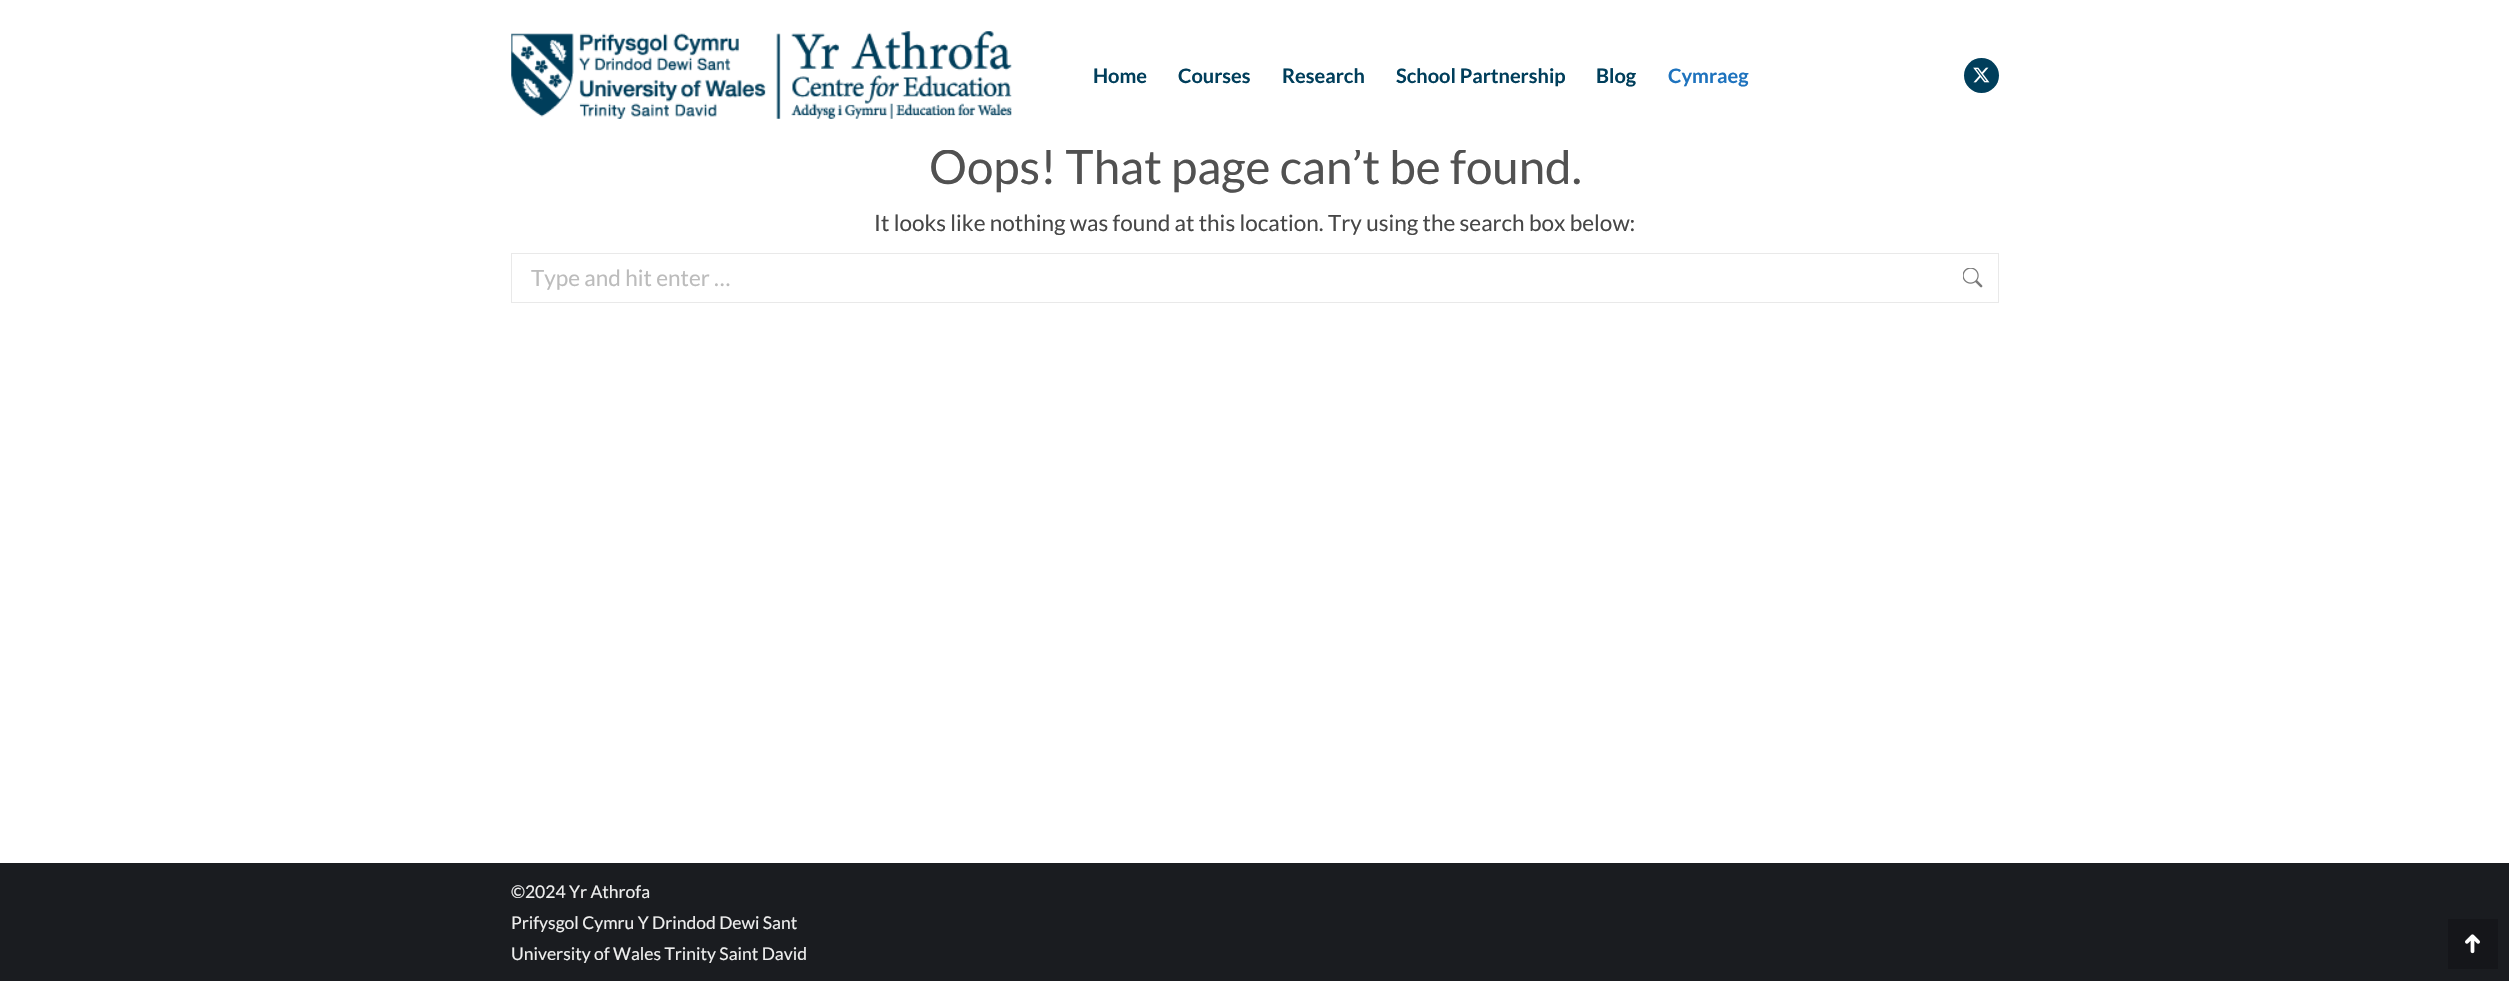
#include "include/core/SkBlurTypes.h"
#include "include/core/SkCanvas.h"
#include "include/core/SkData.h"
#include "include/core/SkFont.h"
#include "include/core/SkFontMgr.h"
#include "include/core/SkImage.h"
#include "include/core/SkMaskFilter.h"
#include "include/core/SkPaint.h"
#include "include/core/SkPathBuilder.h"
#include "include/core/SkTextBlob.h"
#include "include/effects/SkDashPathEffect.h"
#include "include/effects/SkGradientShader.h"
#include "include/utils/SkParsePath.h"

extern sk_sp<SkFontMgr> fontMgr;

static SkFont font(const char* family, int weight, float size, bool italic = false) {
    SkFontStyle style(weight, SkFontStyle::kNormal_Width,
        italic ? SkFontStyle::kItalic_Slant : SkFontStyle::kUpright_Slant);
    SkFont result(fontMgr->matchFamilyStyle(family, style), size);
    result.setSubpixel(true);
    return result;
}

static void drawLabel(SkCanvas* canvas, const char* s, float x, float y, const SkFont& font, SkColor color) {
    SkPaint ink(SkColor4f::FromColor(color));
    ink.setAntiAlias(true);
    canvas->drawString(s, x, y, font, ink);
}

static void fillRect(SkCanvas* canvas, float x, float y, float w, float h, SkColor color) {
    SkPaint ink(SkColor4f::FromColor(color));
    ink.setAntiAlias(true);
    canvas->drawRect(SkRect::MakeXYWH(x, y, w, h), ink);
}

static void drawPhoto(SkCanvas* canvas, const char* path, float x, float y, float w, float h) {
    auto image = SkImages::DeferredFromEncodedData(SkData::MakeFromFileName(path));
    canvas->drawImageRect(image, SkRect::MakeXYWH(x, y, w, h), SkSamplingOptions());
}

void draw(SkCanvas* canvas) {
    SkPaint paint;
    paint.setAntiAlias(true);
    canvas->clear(0xFFFFFFFF);
    SkFont font1 = font("Lato", 400, 47.5f);
    drawLabel(canvas, "Oops! That page can’t be found.", 929, 184, font1, 0xFF515151);
    fillRect(canvas, 943, 148, 625, 2, 0xFFFFFFFF);
    drawPhoto(canvas, "assets/img1.png", 511, 31, 501, 88);
    SkFont font2 = font("Lato", 700, 20);
    drawLabel(canvas, "Home", 1093, 83, font2, 0xFF003E5B);
    drawLabel(canvas, "Courses", 1178, 83, font2, 0xFF003E5B);
    drawLabel(canvas, "Research", 1282, 83, font2, 0xFF003E5B);
    drawLabel(canvas, "School Partnership", 1396, 83, font2, 0xFF003E5B);
    drawLabel(canvas, "Blog", 1596, 83, font2, 0xFF003E5B);
    drawLabel(canvas, "Cymraeg", 1668, 83, font2, 0xFF1E73BE);
    paint.setColor(0xFF003E5B);
    canvas->drawCircle(1981.5f, 75.5f, 17.5f, paint);
    drawPhoto(canvas, "assets/img2.png", 1973, 67, 17, 16);
    SkFont font3 = font("Lato", 400, 22.5f);
    drawLabel(canvas, "It looks like nothing was found at this location. Try using the search box below:", 874, 231, font3, 0xFF474747);
    paint.setStroke(true);
    paint.setStrokeWidth(1);
    paint.setColor(0xFFE9E9E9);
    canvas->drawRect(SkRect::MakeXYWH(511.5f, 253.5f, 1487, 49), paint);
    drawLabel(canvas, "Type and hit enter …", 531, 286, font3, 0xFFBCBCBC);
    drawPhoto(canvas, "assets/img3.png", 1963, 268, 20, 20);
    fillRect(canvas, 0, 863, 2509, 118, 0xFF1A1C20);
    SkFont font4 = font("Lato", 400, 17.5f);
    drawLabel(canvas, "©2024 Yr Athrofa", 511, 898, font4, 0xFFEEEEEE);
    drawLabel(canvas, "Prifysgol Cymru Y Drindod Dewi Sant", 511, 929, font4, 0xFFEEEEEE);
    drawLabel(canvas, "University of Wales Trinity Saint David", 511, 960, font4, 0xFFEEEEEE);
    fillRect(canvas, 2448, 919, 50, 50, 0xFF15161A);
    drawPhoto(canvas, "assets/img4.png", 2465, 934, 15, 20);
}
